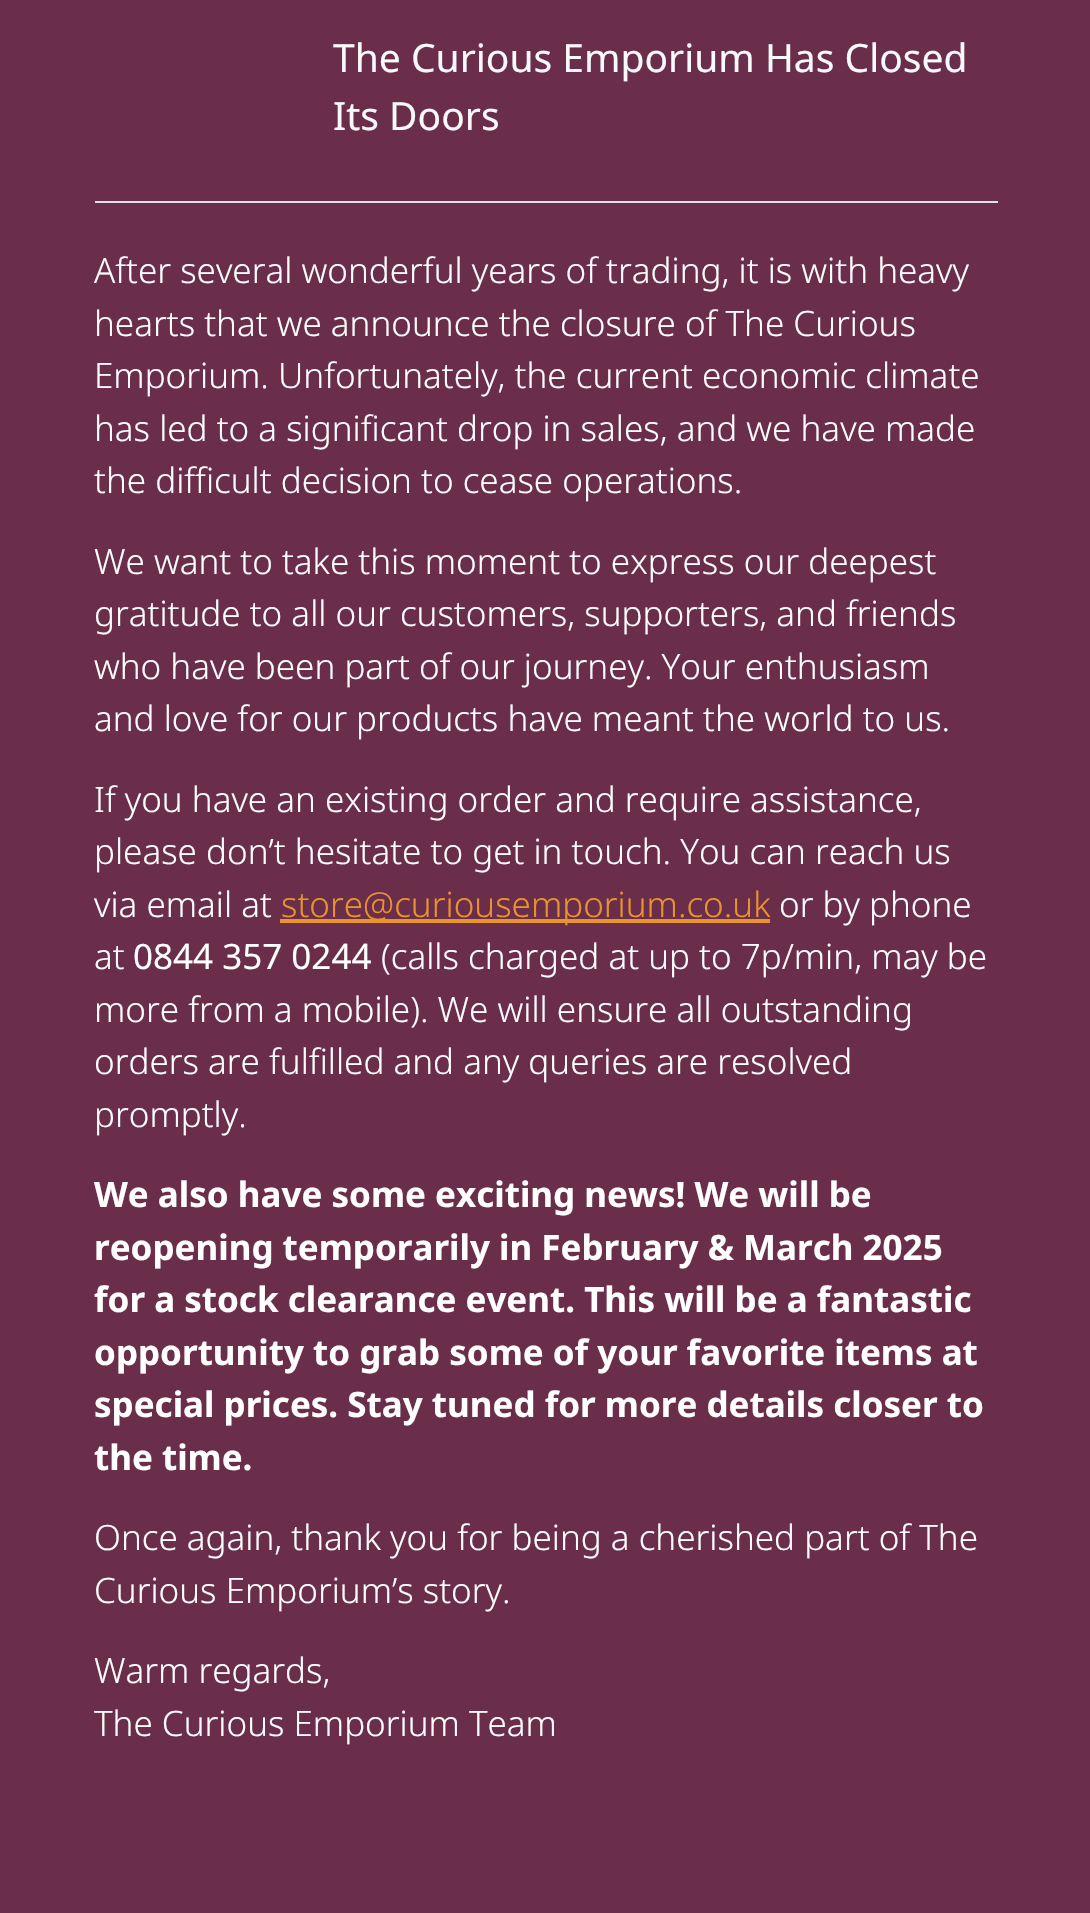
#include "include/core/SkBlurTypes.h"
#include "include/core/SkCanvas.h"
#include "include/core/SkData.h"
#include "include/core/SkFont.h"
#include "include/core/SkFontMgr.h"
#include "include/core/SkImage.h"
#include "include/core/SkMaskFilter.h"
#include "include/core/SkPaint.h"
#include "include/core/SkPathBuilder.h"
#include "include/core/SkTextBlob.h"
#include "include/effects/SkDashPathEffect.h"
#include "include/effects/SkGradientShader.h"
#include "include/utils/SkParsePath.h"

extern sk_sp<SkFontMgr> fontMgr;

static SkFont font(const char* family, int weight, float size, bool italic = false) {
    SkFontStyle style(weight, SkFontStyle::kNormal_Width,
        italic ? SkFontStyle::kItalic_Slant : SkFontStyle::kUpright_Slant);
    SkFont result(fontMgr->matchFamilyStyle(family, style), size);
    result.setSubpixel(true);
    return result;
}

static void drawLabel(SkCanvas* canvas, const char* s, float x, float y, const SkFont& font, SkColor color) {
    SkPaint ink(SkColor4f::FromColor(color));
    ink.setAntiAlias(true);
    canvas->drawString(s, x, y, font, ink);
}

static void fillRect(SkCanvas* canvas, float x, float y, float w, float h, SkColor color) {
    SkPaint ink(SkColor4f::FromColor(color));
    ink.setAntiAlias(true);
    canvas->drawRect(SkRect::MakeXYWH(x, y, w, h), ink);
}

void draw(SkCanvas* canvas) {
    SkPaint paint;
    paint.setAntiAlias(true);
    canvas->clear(0xFF6A2E4A);
    fillRect(canvas, 95, 201, 903, 2, 0xFFDEE2E6);
    SkFont font1 = font("Noto Sans", 400, 39);
    drawLabel(canvas, "The Curious Emporium Has Closed", 333, 72, font1, 0xFFF8F9FA);
    drawLabel(canvas, "Its Doors", 333, 130, font1, 0xFFF8F9FA);
    SkFont font2 = font("Noto Sans", 300, 35);
    drawLabel(canvas, "After several wonderful years of trading, it is with heavy", 94, 283, font2, 0xFFFFFFFF);
    drawLabel(canvas, "hearts that we announce the closure of The Curious", 94, 336, font2, 0xFFFFFFFF);
    drawLabel(canvas, "Emporium. Unfortunately, the current economic climate", 94, 388, font2, 0xFFFFFFFF);
    drawLabel(canvas, "has led to a significant drop in sales, and we have made", 94, 441, font2, 0xFFFFFFFF);
    drawLabel(canvas, "the difficult decision to cease operations.", 94, 493, font2, 0xFFFFFFFF);
    drawLabel(canvas, "We want to take this moment to express our deepest", 94, 574, font2, 0xFFFFFFFF);
    drawLabel(canvas, "gratitude to all our customers, supporters, and friends", 94, 626, font2, 0xFFFFFFFF);
    drawLabel(canvas, "who have been part of our journey. Your enthusiasm", 94, 679, font2, 0xFFFFFFFF);
    drawLabel(canvas, "and love for our products have meant the world to us.", 94, 731, font2, 0xFFFFFFFF);
    drawLabel(canvas, "If you have an existing order and require assistance,", 94, 812, font2, 0xFFFFFFFF);
    drawLabel(canvas, "please don’t hesitate to get in touch. You can reach us", 94, 864, font2, 0xFFFFFFFF);
    drawLabel(canvas, "via email at", 94, 917, font2, 0xFFFFFFFF);
    fillRect(canvas, 280, 919, 490, 4, 0xFFE8932E);
    drawLabel(canvas, "store@curiousemporium.co.uk", 281, 917, font2, 0xFFE8932E);
    drawLabel(canvas, "or by phone", 779, 917, font2, 0xFFFFFFFF);
    drawLabel(canvas, "at", 94, 969, font2, 0xFFFFFFFF);
    SkFont font3 = font("Noto Sans", 400, 35);
    drawLabel(canvas, "0844 357 0244", 133, 969, font3, 0xFFFFFFFF);
    drawLabel(canvas, "(calls charged at up to 7p/min, may be", 381, 969, font2, 0xFFFFFFFF);
    drawLabel(canvas, "more from a mobile). We will ensure all outstanding", 94, 1022, font2, 0xFFFFFFFF);
    drawLabel(canvas, "orders are fulfilled and any queries are resolved", 94, 1074, font2, 0xFFFFFFFF);
    drawLabel(canvas, "promptly.", 94, 1127, font2, 0xFFFFFFFF);
    SkFont font4 = font("Noto Sans", 700, 35);
    drawLabel(canvas, "We also have some exciting news! We will be", 94, 1207, font4, 0xFFFFFFFF);
    drawLabel(canvas, "reopening temporarily in February & March 2025", 94, 1260, font4, 0xFFFFFFFF);
    drawLabel(canvas, "for a stock clearance event. This will be a fantastic", 94, 1312, font4, 0xFFFFFFFF);
    drawLabel(canvas, "opportunity to grab some of your favorite items at", 94, 1365, font4, 0xFFFFFFFF);
    drawLabel(canvas, "special prices. Stay tuned for more details closer to", 94, 1417, font4, 0xFFFFFFFF);
    drawLabel(canvas, "the time.", 94, 1470, font4, 0xFFFFFFFF);
    drawLabel(canvas, "Once again, thank you for being a cherished part of The", 94, 1550, font2, 0xFFFFFFFF);
    drawLabel(canvas, "Curious Emporium’s story.", 94, 1603, font2, 0xFFFFFFFF);
    drawLabel(canvas, "Warm regards,", 94, 1683, font2, 0xFFFFFFFF);
    drawLabel(canvas, "The Curious Emporium Team", 94, 1736, font2, 0xFFFFFFFF);
}
